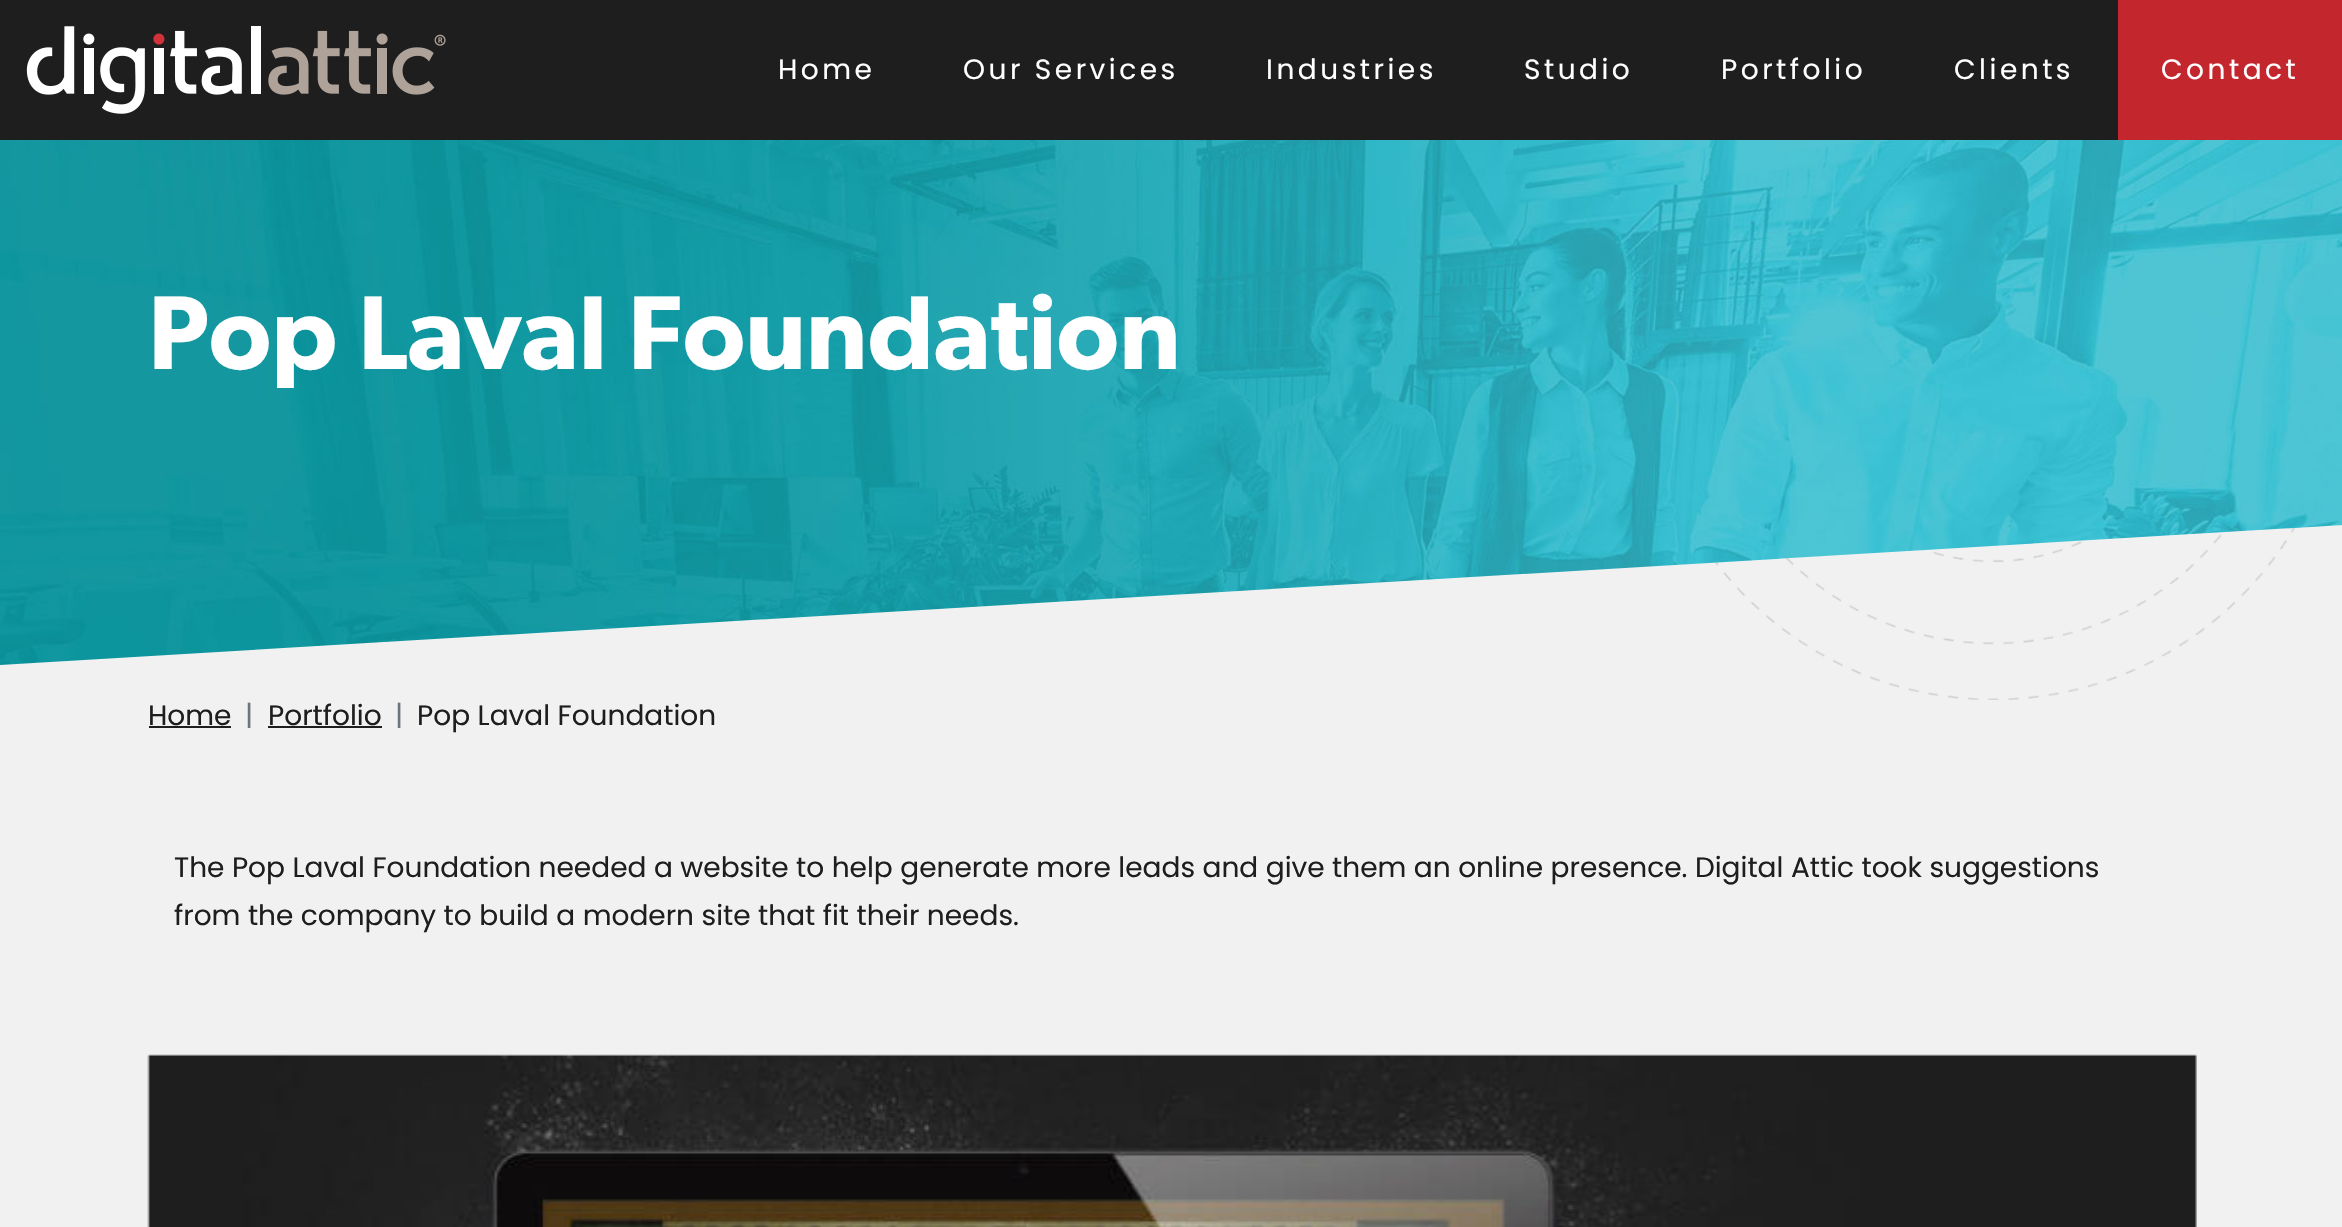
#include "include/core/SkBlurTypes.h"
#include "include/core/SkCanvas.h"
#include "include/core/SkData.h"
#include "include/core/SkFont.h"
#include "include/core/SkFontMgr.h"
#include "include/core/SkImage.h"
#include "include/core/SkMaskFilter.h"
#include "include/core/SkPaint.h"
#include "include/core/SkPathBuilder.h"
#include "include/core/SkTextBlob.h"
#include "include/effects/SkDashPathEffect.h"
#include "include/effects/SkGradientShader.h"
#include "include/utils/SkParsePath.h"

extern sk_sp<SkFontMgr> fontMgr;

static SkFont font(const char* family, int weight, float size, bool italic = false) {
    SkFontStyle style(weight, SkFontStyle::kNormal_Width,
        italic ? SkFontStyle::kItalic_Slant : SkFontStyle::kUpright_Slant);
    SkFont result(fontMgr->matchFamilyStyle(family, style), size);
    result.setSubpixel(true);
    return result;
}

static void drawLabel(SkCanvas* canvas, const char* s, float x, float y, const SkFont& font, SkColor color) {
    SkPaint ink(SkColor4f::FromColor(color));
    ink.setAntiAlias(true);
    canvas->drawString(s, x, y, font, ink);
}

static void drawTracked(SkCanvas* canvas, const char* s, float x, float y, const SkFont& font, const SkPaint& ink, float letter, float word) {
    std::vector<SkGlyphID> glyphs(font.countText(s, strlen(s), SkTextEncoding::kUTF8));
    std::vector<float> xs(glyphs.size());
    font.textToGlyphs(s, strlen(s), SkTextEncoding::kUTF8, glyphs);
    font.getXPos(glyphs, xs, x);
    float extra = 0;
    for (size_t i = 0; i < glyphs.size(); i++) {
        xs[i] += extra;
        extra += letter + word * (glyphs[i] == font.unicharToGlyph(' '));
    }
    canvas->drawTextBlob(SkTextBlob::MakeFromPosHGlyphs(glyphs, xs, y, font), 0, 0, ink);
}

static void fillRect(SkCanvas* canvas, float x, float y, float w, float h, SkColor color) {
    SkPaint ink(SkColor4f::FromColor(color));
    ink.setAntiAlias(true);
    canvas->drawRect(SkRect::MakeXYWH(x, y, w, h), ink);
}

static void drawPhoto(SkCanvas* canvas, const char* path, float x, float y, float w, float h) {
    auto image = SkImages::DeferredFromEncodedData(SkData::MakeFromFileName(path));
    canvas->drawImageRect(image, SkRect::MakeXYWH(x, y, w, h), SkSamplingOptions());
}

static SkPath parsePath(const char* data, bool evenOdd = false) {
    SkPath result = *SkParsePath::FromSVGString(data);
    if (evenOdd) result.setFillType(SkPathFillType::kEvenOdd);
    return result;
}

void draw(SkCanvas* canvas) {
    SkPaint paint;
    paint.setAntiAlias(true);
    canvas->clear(0xFFF1F1F1);
    fillRect(canvas, 0, 0, 2118, 140, 0xFF1E1E1E);
    drawPhoto(canvas, "assets/img1.png", 26, 26, 420, 88);
    SkFont font1 = font("Poppins", 400, 28);
    paint.setColor(0xFFFFFFFF);
    drawTracked(canvas, "Home", 778, 79, font1, paint, 3.5f, 0);
    drawTracked(canvas, "Our Services", 963, 79, font1, paint, 3.5f, 0);
    drawTracked(canvas, "Industries", 1266, 79, font1, paint, 3.5f, 0);
    drawTracked(canvas, "Studio", 1524, 79, font1, paint, 3.5f, 0);
    drawTracked(canvas, "Portfolio", 1721, 79, font1, paint, 3.5f, 0);
    drawTracked(canvas, "Clients", 1954, 79, font1, paint, 3.5f, 0);
    fillRect(canvas, 2118, 0, 224, 140, 0xFFC4262E);
    drawTracked(canvas, "Contact", 2161, 79, font1, paint, 3.5f, 0);
    drawPhoto(canvas, "assets/img3.png", 1714, 527, 582, 173);
    paint.setColor(0xFFF1F1F1);
    canvas->drawPath(parsePath("M0 140V665L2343 525V140Z"), paint);
    drawPhoto(canvas, "assets/img2.png", 0, 140, 2342, 525);
    SkFont font2 = font("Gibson", 600, 105);
    drawLabel(canvas, "Pop Laval Foundation", 148, 369, font2, 0xFFFFFFFF);
    drawLabel(canvas, "Home", 148, 725, font1, 0xFF1E1E1E);
    fillRect(canvas, 149, 726, 82, 2, 0xFF1E1E1E);
    drawLabel(canvas, "|", 245, 725, font1, 0xFF6C757D);
    drawLabel(canvas, "Portfolio", 268, 725, font1, 0xFF1E1E1E);
    fillRect(canvas, 268, 726, 114, 2, 0xFF1E1E1E);
    drawLabel(canvas, "|", 395, 725, font1, 0xFF6C757D);
    drawLabel(canvas, "Pop Laval Foundation", 417, 725, font1, 0xFF1E1E1E);
    drawLabel(canvas, "The Pop Laval Foundation needed a website to help generate more leads and give them an online presence. Digital Attic took suggestions", 174, 877, font1, 0xFF1E1E1E);
    drawLabel(canvas, "from the company to build a modern site that fit their needs.", 174, 925, font1, 0xFF1E1E1E);
    drawPhoto(canvas, "assets/img4.png", 147, 1054, 2050, 173);
}
